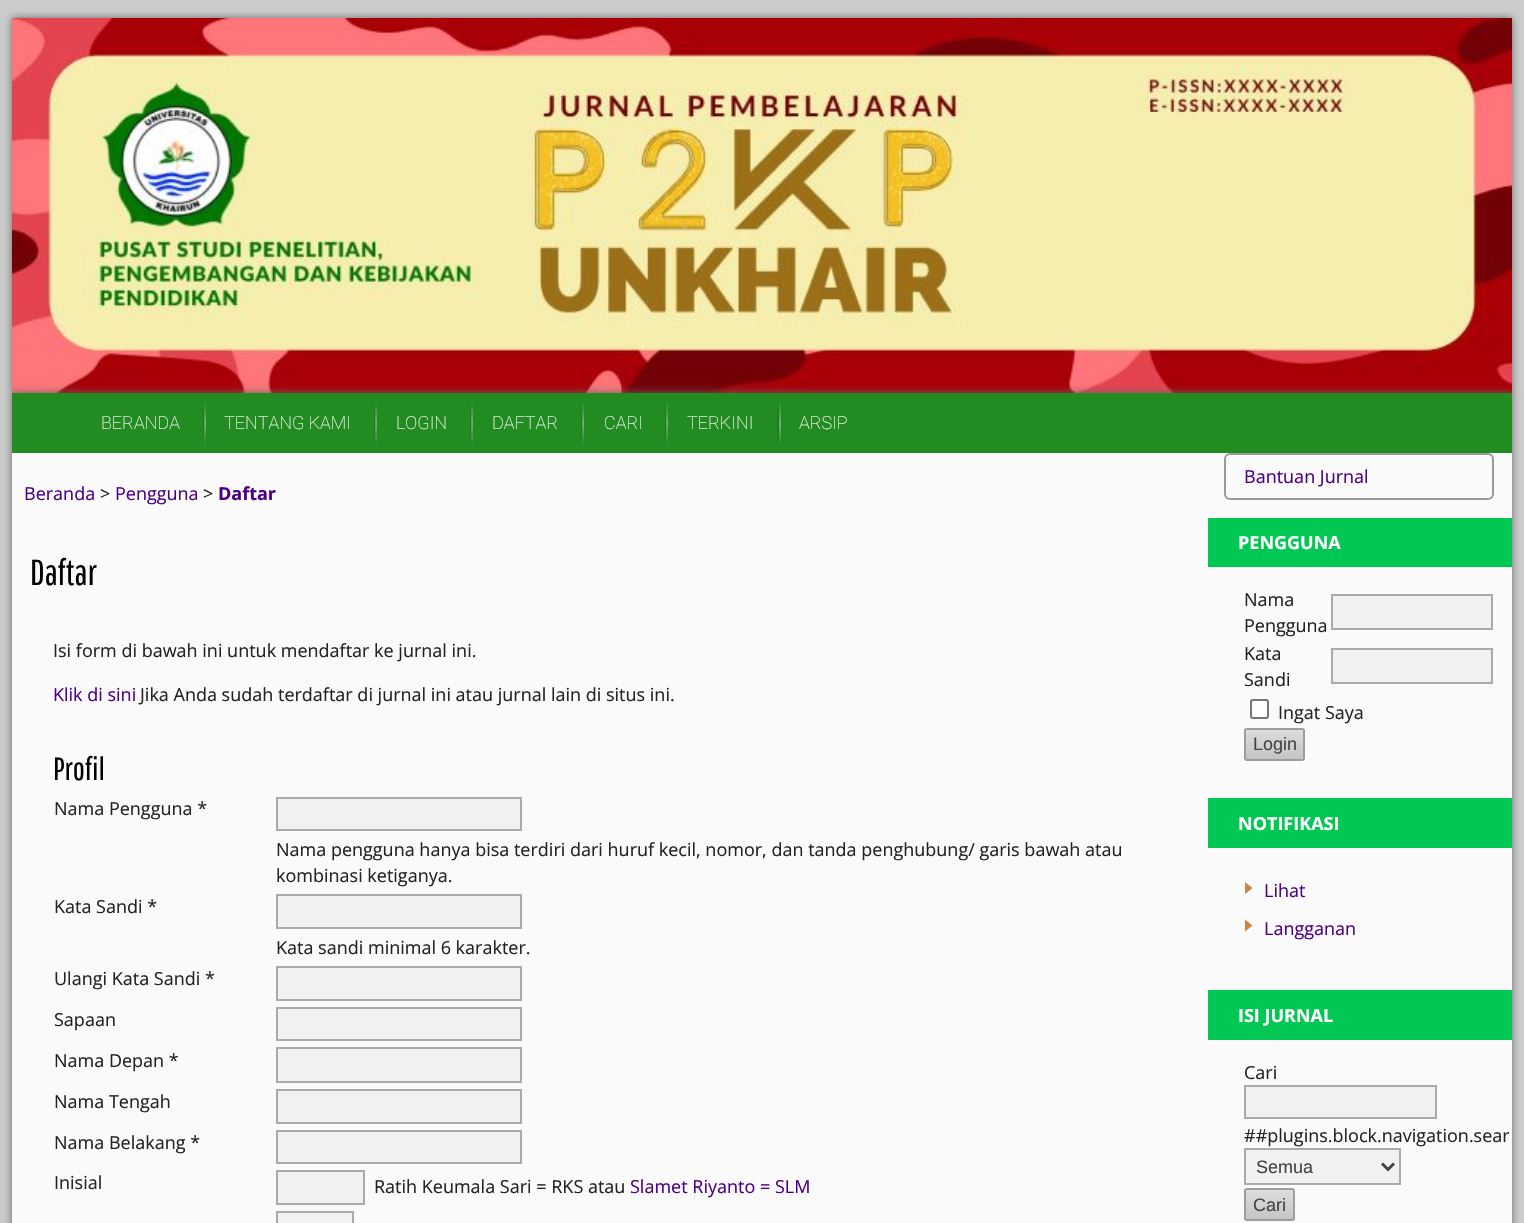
#include "include/core/SkBlurTypes.h"
#include "include/core/SkCanvas.h"
#include "include/core/SkData.h"
#include "include/core/SkFont.h"
#include "include/core/SkFontMgr.h"
#include "include/core/SkImage.h"
#include "include/core/SkMaskFilter.h"
#include "include/core/SkPaint.h"
#include "include/core/SkPathBuilder.h"
#include "include/core/SkTextBlob.h"
#include "include/effects/SkDashPathEffect.h"
#include "include/effects/SkGradientShader.h"
#include "include/utils/SkParsePath.h"

extern sk_sp<SkFontMgr> fontMgr;

static SkFont font(const char* family, int weight, float size, bool italic = false) {
    SkFontStyle style(weight, SkFontStyle::kNormal_Width,
        italic ? SkFontStyle::kItalic_Slant : SkFontStyle::kUpright_Slant);
    SkFont result(fontMgr->matchFamilyStyle(family, style), size);
    result.setSubpixel(true);
    return result;
}

static void drawLabel(SkCanvas* canvas, const char* s, float x, float y, const SkFont& font, SkColor color) {
    SkPaint ink(SkColor4f::FromColor(color));
    ink.setAntiAlias(true);
    canvas->drawString(s, x, y, font, ink);
}

static void fillRect(SkCanvas* canvas, float x, float y, float w, float h, SkColor color) {
    SkPaint ink(SkColor4f::FromColor(color));
    ink.setAntiAlias(true);
    canvas->drawRect(SkRect::MakeXYWH(x, y, w, h), ink);
}

static void drawPhoto(SkCanvas* canvas, const char* path, float x, float y, float w, float h) {
    auto image = SkImages::DeferredFromEncodedData(SkData::MakeFromFileName(path));
    canvas->drawImageRect(image, SkRect::MakeXYWH(x, y, w, h), SkSamplingOptions());
}

static SkPath parsePath(const char* data, bool evenOdd = false) {
    SkPath result = *SkParsePath::FromSVGString(data);
    if (evenOdd) result.setFillType(SkPathFillType::kEvenOdd);
    return result;
}

void draw(SkCanvas* canvas) {
    SkPaint paint;
    paint.setAntiAlias(true);
    canvas->clear(0xFFCCCCCC);
    paint.setColor(0xFF666666);
    paint.setMaskFilter(SkMaskFilter::MakeBlur(kNormal_SkBlurStyle, 4));
    canvas->drawRect(SkRect::MakeXYWH(12, 18, 1500, 375), paint);
    paint.setMaskFilter(nullptr);
    drawPhoto(canvas, "assets/img1.png", 12, 18, 1500, 375);
    paint.setMaskFilter(SkMaskFilter::MakeBlur(kNormal_SkBlurStyle, 4));
    canvas->drawRect(SkRect::MakeXYWH(12, 393, 1500, 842), paint);
    paint.setMaskFilter(nullptr);
    fillRect(canvas, 12, 453, 1500, 770, 0xFFFAFAFA);
    fillRect(canvas, 12, 393, 1500, 60, 0xFF228B22);
    SkFont font1 = font("Roboto", 100, 18);
    drawLabel(canvas, "BERANDA", 101, 429, font1, 0xFFFFFFFF);
    {
        const SkColor colors[] = {0xFF228B22, 0xFF1D761D, 0xFF228B22};
        const float stops[] = {0, 0.5f, 1};
        const SkPoint ends[] = {{203, 401}, {203, 446}};
        paint.setShader(SkGradientShader::MakeLinear(ends, colors, stops, 3, SkTileMode::kClamp));
        paint.setAlpha(255);
    }
    canvas->drawRect(SkRect::MakeXYWH(203, 401, 2, 45), paint);
    {
        const SkColor colors[] = {0x00FFFFFF, 0x59FFFFFF, 0x00FFFFFF};
        const float stops[] = {0, 0.5f, 1};
        const SkPoint ends[] = {{205, 401}, {205, 446}};
        paint.setShader(SkGradientShader::MakeLinear(ends, colors, stops, 3, SkTileMode::kClamp));
        paint.setAlpha(255);
    }
    canvas->drawRect(SkRect::MakeXYWH(204, 401, 2, 45), paint);
    drawLabel(canvas, "TENTANG KAMI", 224, 429, font1, 0xFFFFFFFF);
    {
        const SkColor colors[] = {0xFF228B22, 0xFF1D761D, 0xFF228B22};
        const float stops[] = {0, 0.5f, 1};
        const SkPoint ends[] = {{374, 401}, {374, 446}};
        paint.setShader(SkGradientShader::MakeLinear(ends, colors, stops, 3, SkTileMode::kClamp));
        paint.setAlpha(255);
    }
    canvas->drawRect(SkRect::MakeXYWH(374, 401, 2, 45), paint);
    {
        const SkColor colors[] = {0x00FFFFFF, 0x59FFFFFF, 0x00FFFFFF};
        const float stops[] = {0, 0.5f, 1};
        const SkPoint ends[] = {{376, 401}, {376, 446}};
        paint.setShader(SkGradientShader::MakeLinear(ends, colors, stops, 3, SkTileMode::kClamp));
        paint.setAlpha(255);
    }
    canvas->drawRect(SkRect::MakeXYWH(375, 401, 2, 45), paint);
    drawLabel(canvas, "LOGIN", 396, 429, font1, 0xFFFFFFFF);
    {
        const SkColor colors[] = {0xFF228B22, 0xFF1D761D, 0xFF228B22};
        const float stops[] = {0, 0.5f, 1};
        const SkPoint ends[] = {{470, 401}, {470, 446}};
        paint.setShader(SkGradientShader::MakeLinear(ends, colors, stops, 3, SkTileMode::kClamp));
        paint.setAlpha(255);
    }
    canvas->drawRect(SkRect::MakeXYWH(470, 401, 2, 45), paint);
    {
        const SkColor colors[] = {0x00FFFFFF, 0x59FFFFFF, 0x00FFFFFF};
        const float stops[] = {0, 0.5f, 1};
        const SkPoint ends[] = {{472, 401}, {472, 446}};
        paint.setShader(SkGradientShader::MakeLinear(ends, colors, stops, 3, SkTileMode::kClamp));
        paint.setAlpha(255);
    }
    canvas->drawRect(SkRect::MakeXYWH(471, 401, 2, 45), paint);
    drawLabel(canvas, "DAFTAR", 492, 429, font1, 0xFFFFFFFF);
    {
        const SkColor colors[] = {0xFF228B22, 0xFF1D761D, 0xFF228B22};
        const float stops[] = {0, 0.5f, 1};
        const SkPoint ends[] = {{581, 401}, {581, 446}};
        paint.setShader(SkGradientShader::MakeLinear(ends, colors, stops, 3, SkTileMode::kClamp));
        paint.setAlpha(255);
    }
    canvas->drawRect(SkRect::MakeXYWH(581, 401, 2, 45), paint);
    {
        const SkColor colors[] = {0x00FFFFFF, 0x59FFFFFF, 0x00FFFFFF};
        const float stops[] = {0, 0.5f, 1};
        const SkPoint ends[] = {{583, 401}, {583, 446}};
        paint.setShader(SkGradientShader::MakeLinear(ends, colors, stops, 3, SkTileMode::kClamp));
        paint.setAlpha(255);
    }
    canvas->drawRect(SkRect::MakeXYWH(582, 401, 2, 45), paint);
    drawLabel(canvas, "CARI", 604, 429, font1, 0xFFFFFFFF);
    {
        const SkColor colors[] = {0xFF228B22, 0xFF1D761D, 0xFF228B22};
        const float stops[] = {0, 0.5f, 1};
        const SkPoint ends[] = {{665, 401}, {665, 446}};
        paint.setShader(SkGradientShader::MakeLinear(ends, colors, stops, 3, SkTileMode::kClamp));
        paint.setAlpha(255);
    }
    canvas->drawRect(SkRect::MakeXYWH(665, 401, 2, 45), paint);
    {
        const SkColor colors[] = {0x00FFFFFF, 0x59FFFFFF, 0x00FFFFFF};
        const float stops[] = {0, 0.5f, 1};
        const SkPoint ends[] = {{667, 401}, {667, 446}};
        paint.setShader(SkGradientShader::MakeLinear(ends, colors, stops, 3, SkTileMode::kClamp));
        paint.setAlpha(255);
    }
    canvas->drawRect(SkRect::MakeXYWH(666, 401, 2, 45), paint);
    drawLabel(canvas, "TERKINI", 687, 429, font1, 0xFFFFFFFF);
    {
        const SkColor colors[] = {0xFF228B22, 0xFF1D761D, 0xFF228B22};
        const float stops[] = {0, 0.5f, 1};
        const SkPoint ends[] = {{778, 401}, {778, 446}};
        paint.setShader(SkGradientShader::MakeLinear(ends, colors, stops, 3, SkTileMode::kClamp));
        paint.setAlpha(255);
    }
    canvas->drawRect(SkRect::MakeXYWH(777, 401, 2, 45), paint);
    {
        const SkColor colors[] = {0xFF228B22, 0xFF6FB46F, 0xFF228B22};
        const float stops[] = {0, 0.5f, 1};
        const SkPoint ends[] = {{779, 401}, {779, 446}};
        paint.setShader(SkGradientShader::MakeLinear(ends, colors, stops, 3, SkTileMode::kClamp));
        paint.setAlpha(255);
    }
    canvas->drawRect(SkRect::MakeXYWH(779, 401, 2, 45), paint);
    drawLabel(canvas, "ARSIP", 799, 429, font1, 0xFFFFFFFF);
    SkFont font2 = font("Open Sans", 400, 18);
    drawLabel(canvas, "Beranda", 24, 500, font2, 0xFF4B0082);
    drawLabel(canvas, ">", 100, 500, font2, 0xFF222222);
    drawLabel(canvas, "Pengguna", 115, 500, font2, 0xFF4B0082);
    drawLabel(canvas, ">", 203, 500, font2, 0xFF222222);
    SkFont font3 = font("Open Sans", 700, 18);
    drawLabel(canvas, "Daftar", 218, 500, font3, 0xFF4B0082);
    SkFont font4 = font("Pathway Gothic One", 400, 36);
    drawLabel(canvas, "Daftar", 30, 585, font4, 0xFF000000);
    drawLabel(canvas, "Isi form di bawah ini untuk mendaftar ke jurnal ini.", 53, 657, font2, 0xFF222222);
    drawLabel(canvas, "Klik di sini", 53, 701, font2, 0xFF4B0082);
    drawLabel(canvas, "Jika Anda sudah terdaftar di jurnal ini atau jurnal lain di situs ini.", 140, 701, font2, 0xFF222222);
    SkFont font5 = font("Pathway Gothic One", 400, 32);
    drawLabel(canvas, "Profil", 53, 780, font5, 0xFF000000);
    drawLabel(canvas, "Nama Pengguna *", 54, 815, font2, 0xFF222222);
    paint.setShader(nullptr);
    paint.setColor(0xFFF1F1F1);
    canvas->drawRect(SkRect::MakeXYWH(277, 798, 244, 32), paint);
    paint.setStroke(true);
    paint.setStrokeWidth(2);
    paint.setColor(0xFFAAAAAA);
    canvas->drawRect(SkRect::MakeXYWH(277, 798, 244, 32), paint);
    drawLabel(canvas, "Nama pengguna hanya bisa terdiri dari huruf kecil, nomor, dan tanda penghubung/ garis bawah atau", 276, 856, font2, 0xFF222222);
    drawLabel(canvas, "kombinasi ketiganya.", 276, 882, font2, 0xFF222222);
    drawLabel(canvas, "Kata Sandi *", 54, 913, font2, 0xFF222222);
    paint.setStroke(false);
    paint.setColor(0xFFF1F1F1);
    canvas->drawRect(SkRect::MakeXYWH(277, 895, 244, 33), paint);
    paint.setStroke(true);
    paint.setColor(0xFFAAAAAA);
    canvas->drawRect(SkRect::MakeXYWH(277, 895, 244, 33), paint);
    drawLabel(canvas, "Kata sandi minimal 6 karakter.", 276, 954, font2, 0xFF222222);
    drawLabel(canvas, "Ulangi Kata Sandi *", 54, 985, font2, 0xFF222222);
    paint.setStroke(false);
    paint.setColor(0xFFF1F1F1);
    canvas->drawRect(SkRect::MakeXYWH(277, 967, 244, 33), paint);
    paint.setStroke(true);
    paint.setColor(0xFFAAAAAA);
    canvas->drawRect(SkRect::MakeXYWH(277, 967, 244, 33), paint);
    drawLabel(canvas, "Sapaan", 54, 1026, font2, 0xFF222222);
    paint.setStroke(false);
    paint.setColor(0xFFF1F1F1);
    canvas->drawRect(SkRect::MakeXYWH(277, 1008, 244, 32), paint);
    paint.setStroke(true);
    paint.setColor(0xFFAAAAAA);
    canvas->drawRect(SkRect::MakeXYWH(277, 1008, 244, 32), paint);
    drawLabel(canvas, "Nama Depan *", 54, 1067, font2, 0xFF222222);
    paint.setStroke(false);
    paint.setColor(0xFFF1F1F1);
    canvas->drawRect(SkRect::MakeXYWH(277, 1048, 244, 34), paint);
    paint.setStroke(true);
    paint.setColor(0xFFAAAAAA);
    canvas->drawRect(SkRect::MakeXYWH(277, 1048, 244, 34), paint);
    drawLabel(canvas, "Nama Tengah", 54, 1108, font2, 0xFF222222);
    paint.setStroke(false);
    paint.setColor(0xFFF1F1F1);
    canvas->drawRect(SkRect::MakeXYWH(277, 1090, 244, 33), paint);
    paint.setStroke(true);
    paint.setColor(0xFFAAAAAA);
    canvas->drawRect(SkRect::MakeXYWH(277, 1090, 244, 33), paint);
    drawLabel(canvas, "Nama Belakang *", 54, 1149, font2, 0xFF222222);
    paint.setStroke(false);
    paint.setColor(0xFFF1F1F1);
    canvas->drawRect(SkRect::MakeXYWH(277, 1131, 244, 32), paint);
    paint.setStroke(true);
    paint.setColor(0xFFAAAAAA);
    canvas->drawRect(SkRect::MakeXYWH(277, 1131, 244, 32), paint);
    drawLabel(canvas, "Inisial", 54, 1189, font2, 0xFF222222);
    paint.setStroke(false);
    paint.setColor(0xFFF1F1F1);
    canvas->drawRect(SkRect::MakeXYWH(277, 1171, 87, 33), paint);
    paint.setStroke(true);
    paint.setColor(0xFFAAAAAA);
    canvas->drawRect(SkRect::MakeXYWH(277, 1171, 87, 33), paint);
    drawLabel(canvas, "Ratih Keumala Sari = RKS atau", 374, 1193, font2, 0xFF222222);
    drawLabel(canvas, "Slamet Riyanto = SLM", 630, 1193, font2, 0xFF4B0082);
    paint.setStroke(false);
    paint.setColor(0xFFF1F1F1);
    canvas->drawRect(SkRect::MakeXYWH(277, 1212, 76, 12), paint);
    paint.setStroke(true);
    paint.setColor(0xFFAAAAAA);
    canvas->drawRect(SkRect::MakeXYWH(277, 1212, 76, 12), paint);
    paint.setColor(0xFF999999);
    canvas->drawRoundRect(SkRect::MakeXYWH(1225, 454, 268, 45), 5, 5, paint);
    drawLabel(canvas, "Bantuan Jurnal", 1244, 483, font2, 0xFF4B0082);
    fillRect(canvas, 1208, 518, 304, 49, 0xFF00C853);
    drawLabel(canvas, "PENGGUNA", 1238, 549, font3, 0xFFFFFFFF);
    drawLabel(canvas, "Nama", 1244, 606, font2, 0xFF222222);
    drawLabel(canvas, "Pengguna", 1244, 632, font2, 0xFF222222);
    paint.setStroke(false);
    paint.setColor(0xFFF1F1F1);
    canvas->drawRect(SkRect::MakeXYWH(1332, 595, 160, 34), paint);
    paint.setStroke(true);
    paint.setColor(0xFFAAAAAA);
    canvas->drawRect(SkRect::MakeXYWH(1332, 595, 160, 34), paint);
    drawLabel(canvas, "Kata", 1244, 660, font2, 0xFF222222);
    drawLabel(canvas, "Sandi", 1244, 686, font2, 0xFF222222);
    paint.setStroke(false);
    paint.setColor(0xFFF1F1F1);
    canvas->drawRect(SkRect::MakeXYWH(1332, 649, 160, 34), paint);
    paint.setStroke(true);
    paint.setColor(0xFFAAAAAA);
    canvas->drawRect(SkRect::MakeXYWH(1332, 649, 160, 34), paint);
    paint.setStroke(false);
    paint.setColor(0xFFFFFFFF);
    canvas->drawRoundRect(SkRect::MakeXYWH(1251, 700, 17, 18), 2, 2, paint);
    paint.setStroke(true);
    paint.setColor(0xFF767676);
    canvas->drawRoundRect(SkRect::MakeXYWH(1251, 700, 17, 18), 2, 2, paint);
    drawLabel(canvas, "Ingat Saya", 1278, 719, font2, 0xFF222222);
    canvas->save();
    canvas->clipPath(parsePath("M1247 728H1302C1303.5 728 1305 729.5 1305 731V758C1305 759.5 1303.5 761 1302 761H1247C1245.5 761 1244 759.5 1244 758V731C1244 729.5 1245.5 728 1247 728Z"), true);
    paint.setStroke(false);
    {
        const SkColor colors[] = {0xFFDDDDDD, 0xFFC4C4C4};
        const float stops[] = {0, 1};
        const SkPoint ends[] = {{1274, 729}, {1274, 759}};
        paint.setShader(SkGradientShader::MakeLinear(ends, colors, stops, 2, SkTileMode::kClamp));
        paint.setAlpha(255);
    }
    canvas->drawRect(SkRect::MakeXYWH(1244, 729, 61, 30), paint);
    canvas->restore();
    paint.setStroke(true);
    paint.setShader(nullptr);
    paint.setColor(0xFF9D9D9D);
    canvas->drawRoundRect(SkRect::MakeXYWH(1245, 729, 59, 31), 2, 2, paint);
    SkFont font6 = font("Liberation Sans", 400, 18);
    drawLabel(canvas, "Login", 1253, 750, font6, 0xFF444444);
    fillRect(canvas, 1208, 798, 304, 50, 0xFF00C853);
    drawLabel(canvas, "NOTIFIKASI", 1238, 830, font3, 0xFFFFFFFF);
    paint.setStroke(false);
    paint.setColor(0xFFCD853F);
    canvas->drawPath(parsePath("M1245 894V882L1252.5 888ZM1245 931.5V919.5L1252.5 925.5Z"), paint);
    drawLabel(canvas, "Lihat", 1264, 897, font2, 0xFF4B0082);
    drawLabel(canvas, "Langganan", 1264, 935, font2, 0xFF4B0082);
    fillRect(canvas, 1208, 990, 304, 50, 0xFF00C853);
    drawLabel(canvas, "ISI JURNAL", 1238, 1022, font3, 0xFFFFFFFF);
    drawLabel(canvas, "Cari", 1244, 1079, font2, 0xFF222222);
    paint.setColor(0xFFF1F1F1);
    canvas->drawRect(SkRect::MakeXYWH(1245, 1086, 191, 32), paint);
    paint.setStroke(true);
    paint.setColor(0xFFAAAAAA);
    canvas->drawRect(SkRect::MakeXYWH(1245, 1086, 191, 32), paint);
    drawLabel(canvas, "##plugins.block.navigation.sear", 1244, 1142, font2, 0xFF222222);
    paint.setStroke(false);
    paint.setColor(0xFFF1F1F1);
    canvas->drawRect(SkRect::MakeXYWH(1245, 1149, 155, 35), paint);
    paint.setStroke(true);
    paint.setColor(0xFFAAAAAA);
    canvas->drawRect(SkRect::MakeXYWH(1245, 1149, 155, 35), paint);
    paint.setStrokeWidth(3);
    paint.setColor(0xFF444444);
    canvas->drawPath(parsePath("M1382 1163.5L1388 1169.5L1394 1163.5"), paint);
    drawLabel(canvas, "Semua", 1256, 1173, font6, 0xFF444444);
    canvas->save();
    canvas->clipPath(parsePath("M1247 1188H1292C1293.5 1188 1295 1189.5 1295 1191V1218C1295 1219.5 1293.5 1221 1292 1221H1247C1245.5 1221 1244 1219.5 1244 1218V1191C1244 1189.5 1245.5 1188 1247 1188Z"), true);
    paint.setStroke(false);
    {
        const SkColor colors[] = {0xFFDDDDDD, 0xFFC4C4C4};
        const float stops[] = {0, 1};
        const SkPoint ends[] = {{1269, 1190}, {1269, 1220}};
        paint.setShader(SkGradientShader::MakeLinear(ends, colors, stops, 2, SkTileMode::kClamp));
        paint.setAlpha(255);
    }
    canvas->drawRect(SkRect::MakeXYWH(1244, 1190, 51, 30), paint);
    canvas->restore();
    paint.setStroke(true);
    paint.setStrokeWidth(2);
    paint.setShader(nullptr);
    paint.setColor(0xFF9D9D9D);
    canvas->drawRoundRect(SkRect::MakeXYWH(1245, 1189, 49, 31), 2, 2, paint);
    drawLabel(canvas, "Cari", 1253, 1211, font6, 0xFF444444);
}
